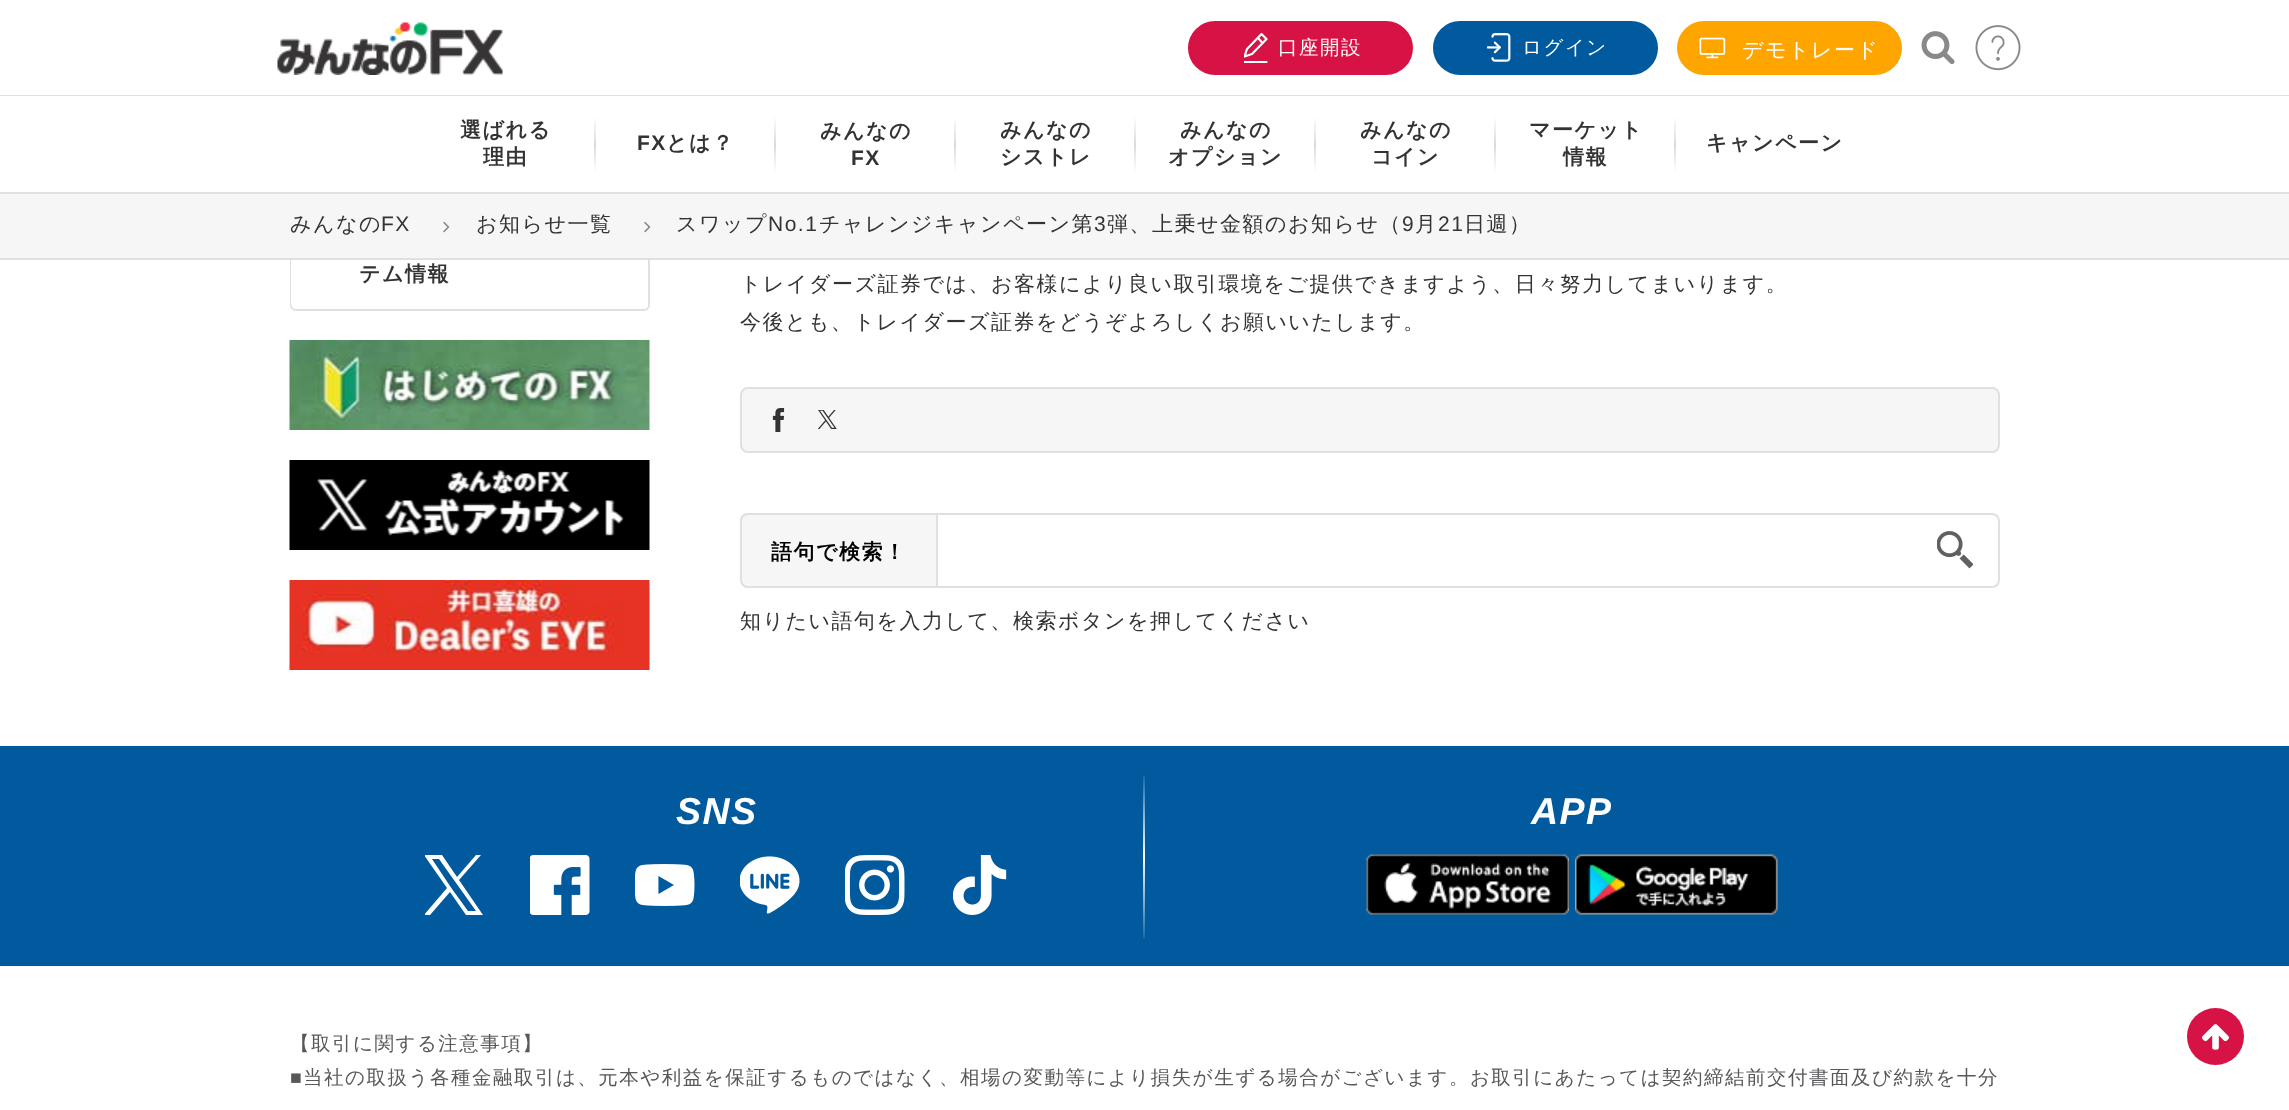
<?xml version="1.0" encoding="UTF-8"?>
<svg xmlns="http://www.w3.org/2000/svg" xmlns:xlink="http://www.w3.org/1999/xlink" width="2289" height="1110">
  <defs>
    <clipPath id="clip1"><rect x="1244" y="33" width="24" height="30" /></clipPath>
    <linearGradient id="g1" gradientUnits="userSpaceOnUse" x1="595" y1="116" x2="595" y2="173"><stop offset="0" stop-color="#ffffff" /><stop offset="0.5" stop-color="#dbdbdb" /><stop offset="1" stop-color="#ffffff" /></linearGradient>
    <linearGradient id="g2" gradientUnits="userSpaceOnUse" x1="775" y1="116" x2="775" y2="173"><stop offset="0" stop-color="#ffffff" /><stop offset="0.5" stop-color="#dbdbdb" /><stop offset="1" stop-color="#ffffff" /></linearGradient>
    <linearGradient id="g3" gradientUnits="userSpaceOnUse" x1="955" y1="116" x2="955" y2="173"><stop offset="0" stop-color="#ffffff" /><stop offset="0.5" stop-color="#dbdbdb" /><stop offset="1" stop-color="#ffffff" /></linearGradient>
    <linearGradient id="g4" gradientUnits="userSpaceOnUse" x1="1135" y1="116" x2="1135" y2="173"><stop offset="0" stop-color="#ffffff" /><stop offset="0.5" stop-color="#dbdbdb" /><stop offset="1" stop-color="#ffffff" /></linearGradient>
    <linearGradient id="g5" gradientUnits="userSpaceOnUse" x1="1315" y1="116" x2="1315" y2="173"><stop offset="0" stop-color="#ffffff" /><stop offset="0.5" stop-color="#dbdbdb" /><stop offset="1" stop-color="#ffffff" /></linearGradient>
    <linearGradient id="g6" gradientUnits="userSpaceOnUse" x1="1495" y1="116" x2="1495" y2="173"><stop offset="0" stop-color="#ffffff" /><stop offset="0.5" stop-color="#dbdbdb" /><stop offset="1" stop-color="#ffffff" /></linearGradient>
    <linearGradient id="g7" gradientUnits="userSpaceOnUse" x1="1675" y1="116" x2="1675" y2="173"><stop offset="0" stop-color="#ffffff" /><stop offset="0.5" stop-color="#dbdbdb" /><stop offset="1" stop-color="#ffffff" /></linearGradient>
    <linearGradient id="g8" gradientUnits="userSpaceOnUse" x1="1144" y1="776" x2="1144" y2="938"><stop offset="0" stop-color="#1a6ba7" /><stop offset="0.5" stop-color="#ffffff" /><stop offset="1" stop-color="#1a6ba7" /></linearGradient>
    <clipPath id="clip2"><rect x="425" y="855" width="58" height="60" /></clipPath>
  </defs>
  <rect width="100%" height="100%" fill="#ffffff" />
  <rect x="291" y="-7" width="358" height="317" rx="5" fill="none" stroke="#e0e0e0" stroke-width="2" />
  <rect x="290" width="360" height="95" fill="#ffffff" />
  <rect y="95" width="2289" height="1" fill="#e0e0e0" />
  <image x="277" y="22" width="226" height="53" xlink:href="image1.png" />
  <rect x="1189.5" y="22.5" width="222" height="51" rx="25.5" fill="#d71244" stroke="#d71244" stroke-width="3" />
  <g clip-path="url(#clip1)">
    <path d="M 1244.5 62 h 22 m -14.5 -8 l -7.5 2.5 l 2.5 -7.5 l 14.5 -15 l 5 5 z" fill="none" stroke="#ffffff" stroke-width="2.2" stroke-linecap="round" stroke-linejoin="round" />
  </g>
  <path d="M 1258 38 l 4.5 5" fill="none" stroke="#ffffff" stroke-width="2.2" stroke-linecap="round" stroke-linejoin="round" />
  <rect x="1434.5" y="22.5" width="222" height="51" rx="25.5" fill="#005a9d" stroke="#005a9d" stroke-width="3" />
  <image x="1487" y="33" width="24" height="29" xlink:href="image2.png" />
  <rect x="1678.5" y="22.5" width="222" height="51" rx="25.5" fill="#ffa500" stroke="#ffa500" stroke-width="3" />
  <image x="1699" y="37" width="27" height="22" xlink:href="image3.png" />
  <image x="1921" y="31" width="34" height="34" xlink:href="image4.png" />
  <image x="1975" y="25" width="46" height="46" xlink:href="image5.png" />
  <rect x="290" y="96" width="360" height="96" fill="#ffffff" />
  <rect y="192" width="2289" height="2" fill="#e0e0e0" />
  <rect x="594" y="116" width="2" height="57" fill="url(#g1)" />
  <rect x="774" y="116" width="2" height="57" fill="url(#g2)" />
  <rect x="954" y="116" width="2" height="57" fill="url(#g3)" />
  <rect x="1134" y="116" width="2" height="57" fill="url(#g4)" />
  <rect x="1314" y="116" width="2" height="57" fill="url(#g5)" />
  <rect x="1494" y="116" width="2" height="57" fill="url(#g6)" />
  <rect x="1674" y="116" width="2" height="57" fill="url(#g7)" />
  <rect x="291" y="195" width="357" height="114" rx="6" fill="#ffffff" />
  <rect y="194" width="2289" height="64" fill="#f6f6f6" />
  <rect y="258" width="2289" height="2" fill="#e0e0e0" />
  <image x="443" y="221" width="7" height="12" xlink:href="image6.png" />
  <image x="644" y="221" width="7" height="12" xlink:href="image6.png" />
  <image x="289" y="340" width="361" height="90" xlink:href="image7.png" />
  <image x="289" y="460" width="361" height="90" xlink:href="image8.png" />
  <image x="289" y="580" width="361" height="90" xlink:href="image9.png" />
  <rect x="741" y="388" width="1258" height="64" rx="7" fill="#f6f6f6" stroke="#e0e0e0" stroke-width="2" />
  <image x="772" y="408" width="13" height="24" xlink:href="image10.png" />
  <image x="818" y="410" width="19" height="19" xlink:href="image11.png" />
  <rect x="741" y="514" width="1258" height="73" rx="7" fill="none" stroke="#e0e0e0" stroke-width="2" />
  <path d="M 748 514 h 189 v 73 h -189 c -4 0 -7 -3 -7 -7 v -59 c 0 -4 3 -7 7 -7 z" fill="#f6f6f6" stroke="#e0e0e0" stroke-width="2" />
  <image x="1937" y="531" width="36" height="38" xlink:href="image12.png" />
  <rect y="746" width="2289" height="220" fill="#005a9d" />
  <rect x="1143" y="776" width="2" height="162" fill="url(#g8)" />
  <g clip-path="url(#clip2)">
    <path d="M 459 880 l 22 -25 h -5 l -19 22 l -15 -22 h -18 l 23 33 l -23 27 h 6 l 20 -23 l 16 23 h 17 z m -7 9 l -20 -30 h 7 l 37 52 h -8 z" fill="#ffffff" />
  </g>
  <image x="530" y="855" width="60" height="60" xlink:href="image13.png" />
  <image x="635" y="864" width="60" height="42" xlink:href="image14.png" />
  <image x="740" y="856" width="60" height="58" xlink:href="image15.png" />
  <image x="845" y="855" width="60" height="60" xlink:href="image16.png" />
  <image x="953" y="855" width="54" height="60" xlink:href="image17.png" />
  <image x="1366" y="854" width="203" height="61" xlink:href="image18.png" />
  <image x="1575" y="854" width="203" height="61" xlink:href="image19.png" />
  <circle cx="2215.5" cy="1036.5" r="28.5" fill="#d71244" />
  <image x="2202" y="1024" width="27" height="26" xlink:href="image20.png" />
  <text x="1278" y="54" style="font-family: WenQuanYi Zen Hei; font-size: 19.5px; font-weight: 500; letter-spacing: 1.5px; fill: #ffffff">口座開設</text>
  <text x="1522" y="54" style="font-family: WenQuanYi Zen Hei; font-size: 19.5px; font-weight: 500; letter-spacing: 1.5px; fill: #ffffff">ログイン</text>
  <text x="1742" y="57" style="font-family: WenQuanYi Zen Hei; font-size: 21px; font-weight: 500; letter-spacing: 1.5px; fill: #ffffff">デモトレード</text>
  <text x="460" y="137" style="font-family: WenQuanYi Zen Hei; font-size: 21px; font-weight: bold; letter-spacing: 1.5px; fill: #333333">選ばれる</text>
  <text x="483" y="164" style="font-family: WenQuanYi Zen Hei; font-size: 21px; font-weight: bold; letter-spacing: 1.5px; fill: #333333">理由</text>
  <text x="637" y="150" style="font-family: Liberation Sans; font-size: 21px; font-weight: bold; letter-spacing: 1.5px; fill: #333333">FX</text>
  <text x="666" y="150" style="font-family: WenQuanYi Zen Hei; font-size: 21px; font-weight: bold; letter-spacing: 1.5px; fill: #333333">とは？</text>
  <text x="820" y="138" style="font-family: WenQuanYi Zen Hei; font-size: 21px; font-weight: bold; letter-spacing: 1.5px; fill: #333333">みんなの</text>
  <text x="851" y="165" style="font-family: Liberation Sans; font-size: 21px; font-weight: bold; letter-spacing: 1.5px; fill: #333333">FX</text>
  <text x="1000" y="137" style="font-family: WenQuanYi Zen Hei; font-size: 21px; font-weight: bold; letter-spacing: 1.5px; fill: #333333">みんなの</text>
  <text x="1000" y="164" style="font-family: WenQuanYi Zen Hei; font-size: 21px; font-weight: bold; letter-spacing: 1.5px; fill: #333333">シストレ</text>
  <text x="1180" y="137" style="font-family: WenQuanYi Zen Hei; font-size: 21px; font-weight: bold; letter-spacing: 1.5px; fill: #333333">みんなの</text>
  <text x="1168" y="164" style="font-family: WenQuanYi Zen Hei; font-size: 21px; font-weight: bold; letter-spacing: 1.5px; fill: #333333">オプション</text>
  <text x="1360" y="137" style="font-family: WenQuanYi Zen Hei; font-size: 21px; font-weight: bold; letter-spacing: 1.5px; fill: #333333">みんなの</text>
  <text x="1371" y="164" style="font-family: WenQuanYi Zen Hei; font-size: 21px; font-weight: bold; letter-spacing: 1.5px; fill: #333333">コイン</text>
  <text x="1529" y="137" style="font-family: WenQuanYi Zen Hei; font-size: 21px; font-weight: bold; letter-spacing: 1.5px; fill: #333333">マーケット</text>
  <text x="1563" y="164" style="font-family: WenQuanYi Zen Hei; font-size: 21px; font-weight: bold; letter-spacing: 1.5px; fill: #333333">情報</text>
  <text x="1706" y="150" style="font-family: WenQuanYi Zen Hei; font-size: 21px; font-weight: bold; letter-spacing: 1.5px; fill: #333333">キャンペーン</text>
  <text x="290" y="231" style="font-family: WenQuanYi Zen Hei; font-size: 21px; font-weight: 500; letter-spacing: 1.5px; fill: #333333">みんなの</text>
  <text x="381" y="231" style="font-family: Liberation Sans; font-size: 21px; letter-spacing: 1.5px; fill: #333333">FX</text>
  <text x="476" y="231" style="font-family: WenQuanYi Zen Hei; font-size: 21px; font-weight: 500; letter-spacing: 1.5px; fill: #333333">お知らせ一覧</text>
  <text x="676" y="231" style="font-family: WenQuanYi Zen Hei; font-size: 21px; font-weight: 500; letter-spacing: 1.5px; fill: #333333">スワップ</text>
  <text x="768" y="231" style="font-family: Liberation Sans; font-size: 21px; letter-spacing: 1.5px; fill: #333333">No.1</text>
  <text x="819" y="231" style="font-family: WenQuanYi Zen Hei; font-size: 21px; font-weight: 500; letter-spacing: 1.5px; fill: #333333">チャレンジキャンペーン第</text>
  <text x="1094" y="231" style="font-family: Liberation Sans; font-size: 21px; letter-spacing: 1.5px; fill: #333333">3</text>
  <text x="1107" y="231" style="font-family: WenQuanYi Zen Hei; font-size: 21px; font-weight: 500; letter-spacing: 1.5px; fill: #333333">弾、上乗せ金額のお知らせ（</text>
  <text x="1402" y="231" style="font-family: Liberation Sans; font-size: 21px; letter-spacing: 1.5px; fill: #333333">9</text>
  <text x="1415" y="231" style="font-family: WenQuanYi Zen Hei; font-size: 21px; font-weight: 500; letter-spacing: 1.5px; fill: #333333">月</text>
  <text x="1438" y="231" style="font-family: Liberation Sans; font-size: 21px; letter-spacing: 1.5px; fill: #333333">21</text>
  <text x="1464" y="231" style="font-family: WenQuanYi Zen Hei; font-size: 21px; font-weight: 500; letter-spacing: 1.5px; fill: #333333">日週）</text>
  <text x="359" y="281" style="font-family: WenQuanYi Zen Hei; font-size: 21px; font-weight: bold; letter-spacing: 1.5px; fill: #333333">テム情報</text>
  <text x="740" y="291" style="font-family: WenQuanYi Zen Hei; font-size: 21px; font-weight: 500; letter-spacing: 1.5px; fill: #333333">トレイダーズ証券では、お客様により良い取引環境をご提供できますよう、日々努力してまいります。</text>
  <text x="740" y="329" style="font-family: WenQuanYi Zen Hei; font-size: 21px; font-weight: 500; letter-spacing: 1.5px; fill: #333333">今後とも、トレイダーズ証券をどうぞよろしくお願いいたします。</text>
  <text x="771" y="559" style="font-family: WenQuanYi Zen Hei; font-size: 21px; font-weight: bold; letter-spacing: 1.5px; fill: #000000">語句で検索！</text>
  <text x="740" y="628" style="font-family: WenQuanYi Zen Hei; font-size: 21px; font-weight: 500; letter-spacing: 1.5px; fill: #333333">知りたい語句を入力して、検索ボタンを押してください</text>
  <text x="676" y="824" style="font-family: Liberation Sans; font-size: 37.5px; font-weight: bold; font-style: italic; letter-spacing: 1.5px; fill: #ffffff">SNS</text>
  <text x="1531" y="824" style="font-family: Liberation Sans; font-size: 37.5px; font-weight: bold; font-style: italic; letter-spacing: 1.5px; fill: #ffffff">APP</text>
  <text x="290" y="1050" style="font-family: WenQuanYi Zen Hei; font-size: 19.5px; font-weight: 500; letter-spacing: 1.5px; fill: #58585b">【取引に関する注意事項】</text>
  <text x="290" y="1084" style="font-family: Liberation Sans; font-size: 19.5px; letter-spacing: 1.5px; fill: #58585b">■</text>
  <text x="303" y="1084" style="font-family: WenQuanYi Zen Hei; font-size: 19.5px; font-weight: 500; letter-spacing: 1.5px; fill: #58585b">当社の取扱う各種金融取引は、元本や利益を保証するものではなく、相場の変動等により損失が生ずる場合がございます。お取引にあたっては契約締結前交付書面及び約款を十分</text>
</svg>
